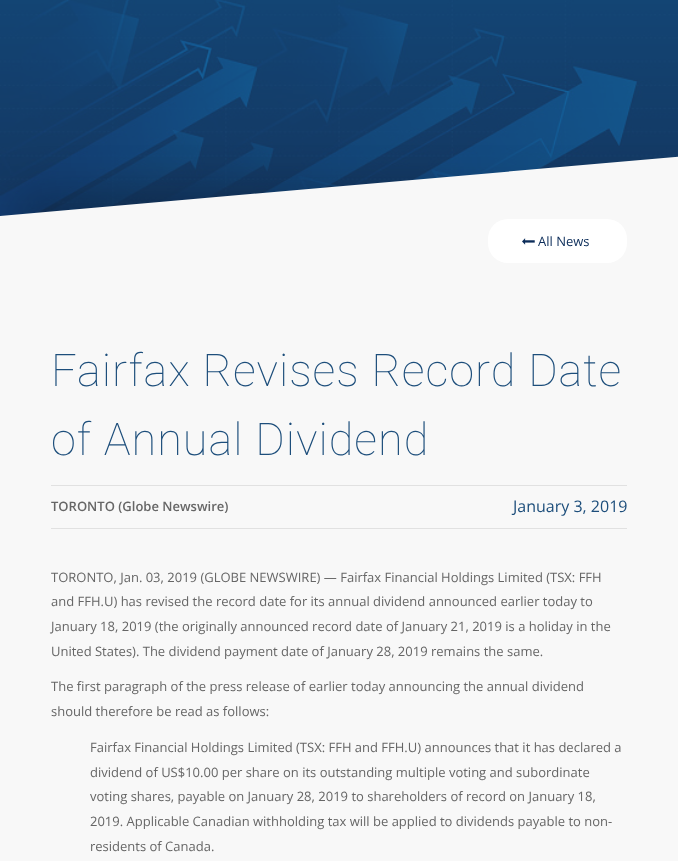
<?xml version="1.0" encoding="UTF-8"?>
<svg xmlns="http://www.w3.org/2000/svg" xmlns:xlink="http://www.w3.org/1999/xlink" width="678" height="861">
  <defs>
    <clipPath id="clip1"><rect x="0" y="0" width="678" height="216" /></clipPath>
    <clipPath id="clip2"><rect width="678" height="216" /></clipPath>
  </defs>
  <rect width="100%" height="100%" fill="#ffffff" />
  <image x="0" y="0" width="678" height="216" xlink:href="image1.png" />
  <rect y="216" width="678" height="645" fill="#f8f8f8" />
  <g clip-path="url(#clip1)">
    <rect x="17" y="191" width="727" height="234" fill="#000000" fill-opacity="0.2" filter="blur(22px)" />
  </g>
  <g clip-path="url(#clip2)">
    <path d="M 0 216 l 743 -65 l 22 249 l -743 65 z" fill="#f8f8f8" />
  </g>
  <rect x="488" y="219" width="139" height="44" rx="20" fill="#ffffff" />
  <image x="522" y="238" width="13" height="7" xlink:href="image2.png" />
  <rect x="51" y="485" width="576" height="1" fill="#e1e1e1" />
  <rect x="51" y="528" width="576" height="1" fill="#e1e1e1" />
  <text x="538" y="246" style="font-family: Open Sans; font-size: 13px; fill: #0b2c59">All News</text>
  <text x="51" y="386" style="font-family: Roboto; font-size: 45px; font-weight: 100; letter-spacing: 1px; fill: #1d4e7b">Fairfax Revises Record Date</text>
  <text x="51" y="455" style="font-family: Roboto; font-size: 45px; font-weight: 100; letter-spacing: 1px; fill: #1d4e7b">of Annual Dividend</text>
  <text x="51" y="511" style="font-family: Open Sans; font-size: 13px; font-weight: 600; fill: #666666">TORONTO (Globe Newswire)</text>
  <text x="513" y="512" style="font-family: Open Sans; font-size: 16px; fill: #1d4e7b">January 3, 2019</text>
  <text x="51" y="582" style="font-family: Open Sans; font-size: 13px; fill: #666666">TORONTO, Jan. 03, 2019 (GLOBE NEWSWIRE) — Fairfax Financial Holdings Limited (TSX: FFH</text>
  <text x="51" y="606" style="font-family: Open Sans; font-size: 13px; fill: #666666">and FFH.U) has revised the record date for its annual dividend announced earlier today to</text>
  <text x="51" y="631" style="font-family: Open Sans; font-size: 13px; fill: #666666">January 18, 2019 (the originally announced record date of January 21, 2019 is a holiday in the</text>
  <text x="51" y="656" style="font-family: Open Sans; font-size: 13px; fill: #666666">United States). The dividend payment date of January 28, 2019 remains the same.</text>
  <text x="51" y="691" style="font-family: Open Sans; font-size: 13px; fill: #666666">The first paragraph of the press release of earlier today announcing the annual dividend</text>
  <text x="51" y="716" style="font-family: Open Sans; font-size: 13px; fill: #666666">should therefore be read as follows:</text>
  <text x="90" y="752" style="font-family: Open Sans; font-size: 13px; fill: #666666">Fairfax Financial Holdings Limited (TSX: FFH and FFH.U) announces that it has declared a</text>
  <text x="90" y="777" style="font-family: Open Sans; font-size: 13px; fill: #666666">dividend of US$10.00 per share on its outstanding multiple voting and subordinate</text>
  <text x="90" y="801" style="font-family: Open Sans; font-size: 13px; fill: #666666">voting shares, payable on January 28, 2019 to shareholders of record on January 18,</text>
  <text x="90" y="826" style="font-family: Open Sans; font-size: 13px; fill: #666666">2019. Applicable Canadian withholding tax will be applied to dividends payable to non-</text>
  <text x="90" y="851" style="font-family: Open Sans; font-size: 13px; fill: #666666">residents of Canada.</text>
</svg>
